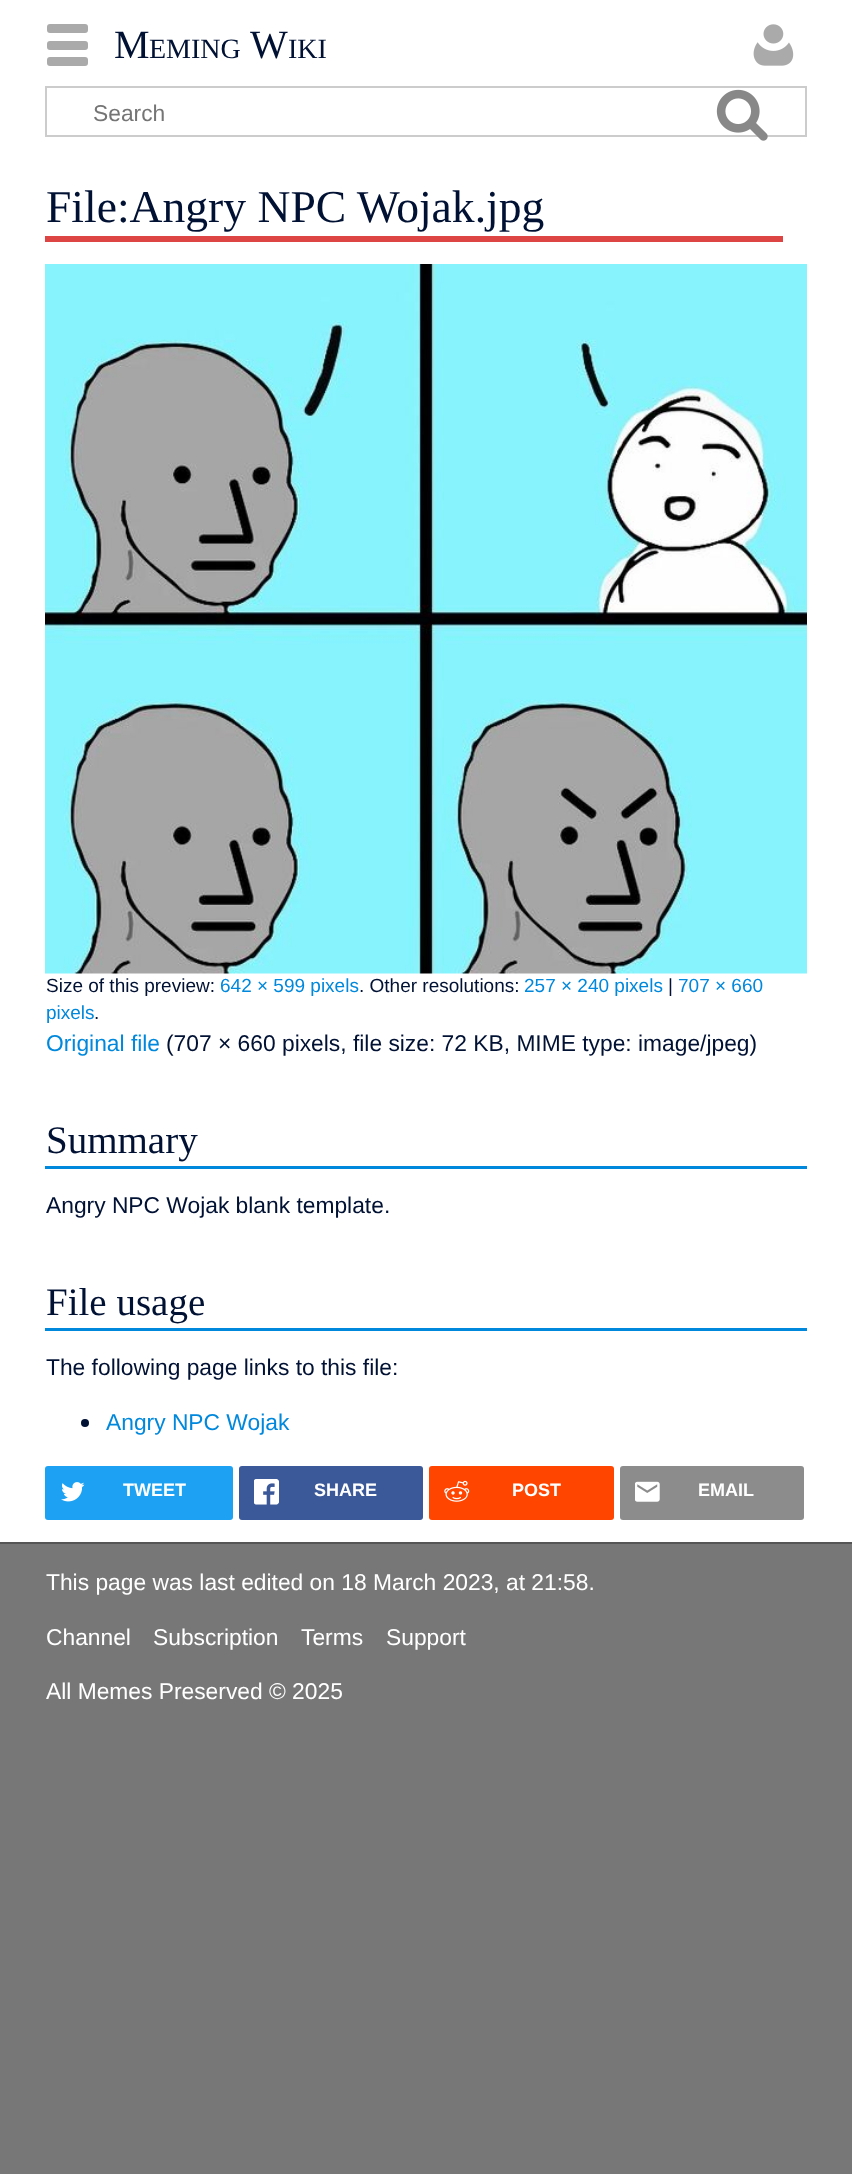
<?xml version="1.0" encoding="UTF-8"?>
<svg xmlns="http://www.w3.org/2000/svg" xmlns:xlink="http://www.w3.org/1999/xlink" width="852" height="2174">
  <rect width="100%" height="100%" fill="#777777" />
  <rect width="852" height="1542" fill="#ffffff" />
  <image x="753" y="24" width="41" height="42" xlink:href="image1.png" />
  <rect x="46" y="87" width="760" height="49" fill="none" stroke="#cccccc" stroke-width="2" />
  <image x="716" y="89" width="52" height="52" xlink:href="image2.png" />
  <rect x="47" y="57" width="41" height="9" rx="3" fill="#aaaaaa" />
  <rect x="47" y="41" width="41" height="9" rx="3" fill="#aaaaaa" />
  <rect x="47" y="24" width="41" height="9" rx="3" fill="#aaaaaa" />
  <rect x="45" y="236" width="738" height="6" fill="#dd4444" />
  <image x="45" y="264" width="762" height="710" xlink:href="image3.png" />
  <rect x="45" y="1166" width="762" height="3" fill="#0088dd" />
  <rect x="45" y="1328" width="762" height="3" fill="#0088dd" />
  <circle cx="85" cy="1423" r="4" fill="#001133" />
  <rect x="45" y="1466" width="188" height="54" rx="3" fill="#1da1f2" />
  <image x="61" y="1482" width="24" height="20" xlink:href="image4.png" />
  <rect x="239" y="1466" width="184" height="54" rx="3" fill="#3b5998" />
  <image x="254" y="1479" width="25" height="26" xlink:href="image5.png" />
  <rect x="429" y="1466" width="185" height="54" rx="3" fill="#ff4500" />
  <image x="444" y="1480" width="26" height="22" xlink:href="image6.png" />
  <rect x="620" y="1466" width="184" height="54" rx="3" fill="#8c8c8c" />
  <image x="635" y="1481" width="25" height="21" xlink:href="image7.png" />
  <rect y="1542" width="852" height="2" fill="#555555" />
  <text x="114" y="58" style="font-family: Liberation Serif; font-size: 40px; fill: #001133">M</text>
  <text x="149" y="58" style="font-family: Liberation Serif; font-size: 28px; fill: #001133">EMING</text>
  <text x="250" y="58" style="font-family: Liberation Serif; font-size: 40px; fill: #001133">W</text>
  <text x="288" y="58" style="font-family: Liberation Serif; font-size: 28px; fill: #001133">IKI</text>
  <text x="93" y="121" style="font-family: Liberation Sans; font-size: 22.8px; fill: #757575">Search</text>
  <text x="46" y="222" style="font-family: Liberation Serif; font-size: 45.6px; fill: #001133">File:Angry NPC Wojak.jpg</text>
  <text x="46" y="992" style="font-family: Liberation Sans; font-size: 19px; fill: #001133">Size of this preview:</text>
  <text x="220" y="992" style="font-family: Liberation Sans; font-size: 19px; fill: #0088dd">642 × 599 pixels</text>
  <text x="359" y="992" style="font-family: Liberation Sans; font-size: 19px; fill: #001133">. Other resolutions:</text>
  <text x="524" y="992" style="font-family: Liberation Sans; font-size: 19px; fill: #0088dd">257 × 240 pixels</text>
  <text x="668" y="992" style="font-family: Liberation Sans; font-size: 19px; fill: #001133">|</text>
  <text x="678" y="992" style="font-family: Liberation Sans; font-size: 19px; fill: #0088dd">707 × 660</text>
  <text x="46" y="1019" style="font-family: Liberation Sans; font-size: 19px; fill: #0088dd">pixels</text>
  <text x="94" y="1019" style="font-family: Liberation Sans; font-size: 19px; fill: #001133">.</text>
  <text x="46" y="1051" style="font-family: Liberation Sans; font-size: 22.8px; fill: #0088dd">Original file</text>
  <text x="166" y="1051" style="font-family: Liberation Sans; font-size: 22.8px; fill: #001133">(707 × 660 pixels, file size: 72 KB, MIME type:</text>
  <text x="638" y="1051" style="font-family: Liberation Sans; font-size: 22.8px; fill: #001133">image/jpeg)</text>
  <text x="46" y="1153" style="font-family: Liberation Serif; font-size: 39px; fill: #001133">Summary</text>
  <text x="46" y="1213" style="font-family: Liberation Sans; font-size: 22.8px; fill: #001133">Angry NPC Wojak blank template.</text>
  <text x="46" y="1315" style="font-family: Liberation Serif; font-size: 39px; fill: #001133">File usage</text>
  <text x="46" y="1375" style="font-family: Liberation Sans; font-size: 22.8px; fill: #001133">The following page links to this file:</text>
  <text x="106" y="1430" style="font-family: Liberation Sans; font-size: 22.8px; fill: #0088dd">Angry NPC Wojak</text>
  <text x="123" y="1496" style="font-family: Liberation Sans; font-size: 18px; font-weight: bold; fill: #ffffff">TWEET</text>
  <text x="314" y="1496" style="font-family: Liberation Sans; font-size: 18px; font-weight: bold; fill: #ffffff">SHARE</text>
  <text x="512" y="1496" style="font-family: Liberation Sans; font-size: 18px; font-weight: bold; fill: #ffffff">POST</text>
  <text x="698" y="1496" style="font-family: Liberation Sans; font-size: 18px; font-weight: bold; fill: #ffffff">EMAIL</text>
  <text x="46" y="1590" style="font-family: Liberation Sans; font-size: 22.8px; fill: #ffffff">This page was last edited on 18 March 2023, at 21:58.</text>
  <text x="46" y="1645" style="font-family: Liberation Sans; font-size: 22.8px; fill: #ffffff">Channel</text>
  <text x="153" y="1645" style="font-family: Liberation Sans; font-size: 22.8px; fill: #ffffff">Subscription</text>
  <text x="301" y="1645" style="font-family: Liberation Sans; font-size: 22.8px; fill: #ffffff">Terms</text>
  <text x="386" y="1645" style="font-family: Liberation Sans; font-size: 22.8px; fill: #ffffff">Support</text>
  <text x="46" y="1699" style="font-family: Liberation Sans; font-size: 22.8px; fill: #ffffff">All Memes Preserved © 2025</text>
</svg>
